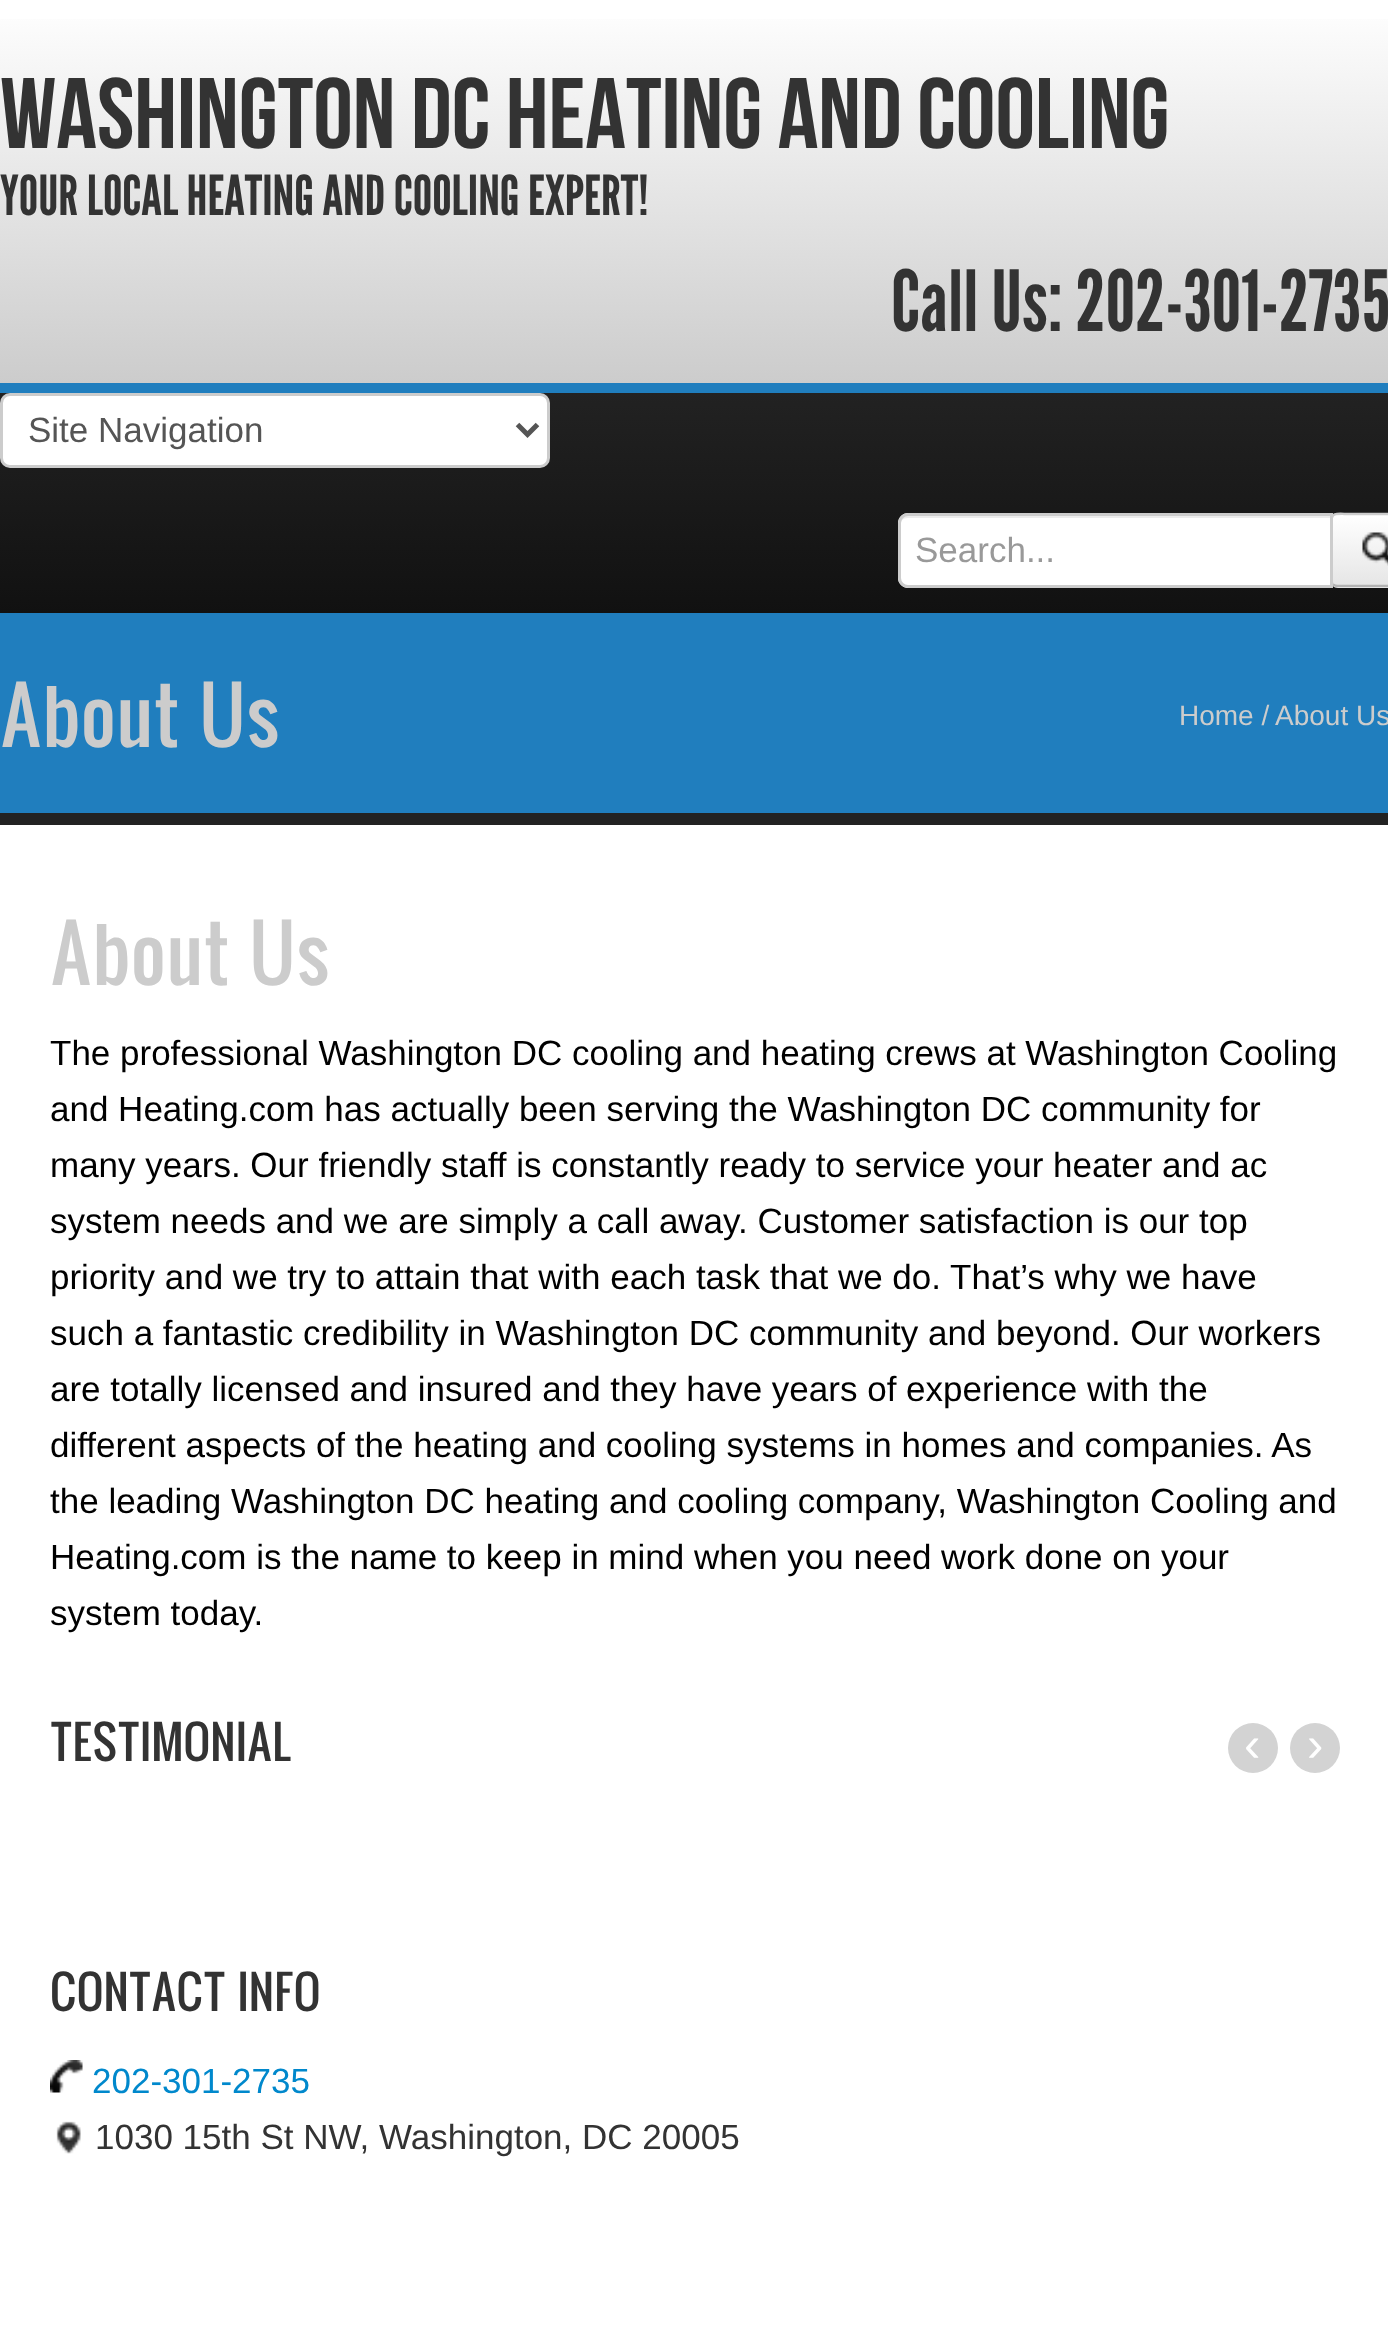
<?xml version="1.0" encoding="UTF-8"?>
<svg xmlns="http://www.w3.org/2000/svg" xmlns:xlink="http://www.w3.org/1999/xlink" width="1388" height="2341">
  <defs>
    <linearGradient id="g1" gradientUnits="userSpaceOnUse" x1="695" y1="0" x2="695" y2="383"><stop offset="0" stop-color="#ffffff" /><stop offset="1" stop-color="#cccccc" /></linearGradient>
    <linearGradient id="g2" gradientUnits="userSpaceOnUse" x1="695" y1="392" x2="695" y2="613"><stop offset="0" stop-color="#222222" /><stop offset="1" stop-color="#111111" /></linearGradient>
    <linearGradient id="g3" gradientUnits="userSpaceOnUse" x1="1380" y1="515" x2="1380" y2="585"><stop offset="0" stop-color="#ffffff" /><stop offset="1" stop-color="#e6e6e6" /></linearGradient>
  </defs>
  <rect width="100%" height="100%" fill="#ffffff" />
  <rect y="19" width="1388" height="364" fill="url(#g1)" />
  <rect y="393" width="1388" height="220" fill="url(#g2)" />
  <rect y="383" width="1388" height="10" fill="#207ebe" />
  <rect x="1.5" y="394.5" width="547" height="72" rx="8.5" fill="#ffffff" stroke="#cccccc" stroke-width="3" />
  <path d="M 517.5 424.5 l 10 10 l 10 -10" fill="none" stroke="#555555" stroke-width="5" />
  <rect x="1330" y="513" width="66" height="75" rx="8" fill="#f5f5f5" />
  <rect x="1333" y="515" width="55" height="70" fill="url(#g3)" />
  <path d="M 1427 584.5 c -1.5 1 -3 1.5 -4.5 1.5 h -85 c -1.5 0 -3 -0.5 -4.5 -1.5" fill="none" stroke="#b3b3b3" stroke-width="2.5" />
  <path d="M 1333 584.5 c -3.5 -3.5 -2 -11.5 -2 -14.5 v -40 c 0 -19 0.5 -16 20.5 -16 h 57 c 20 0 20.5 -3 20.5 16 v 40 c 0 3 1.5 11 -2 14.5" fill="none" stroke="#cccccc" stroke-width="2.5" />
  <path d="M 908 513 h 425 v 75 h -425 c -5.5 0 -10 -4.5 -10 -10 v -55 c 0 -5.5 4.5 -10 10 -10 z" fill="#ffffff" />
  <path d="M 908 518 h 422 v -3 h -422 c -4 0 -8 4 -8 8 v 2 c 0 -4 3 -7 8 -7 z" fill="#ececec" />
  <path d="M 908 514.5 h 423.5 v 72 h -423.5 c -4.5 0 -8.5 -4 -8.5 -8.5 v -55 c 0 -4.5 4 -8.5 8.5 -8.5 z" fill="none" stroke="#cccccc" stroke-width="3" />
  <image x="1362" y="532" width="26" height="34" xlink:href="image1.png" />
  <rect y="613" width="1388" height="200" fill="#207ebe" />
  <rect y="813" width="1388" height="12" fill="#222222" />
  <circle cx="1253" cy="1748" r="25" fill="#d3d3d3" />
  <circle cx="1315" cy="1748" r="25" fill="#d3d3d3" />
  <image x="50" y="2060" width="33" height="33" xlink:href="image2.png" />
  <image x="56" y="2121" width="25" height="33" xlink:href="image3.png" />
  <text x="0" y="148" style="font-family: Bebas Neue; font-size: 100px; fill: #333333">WASHINGTON DC HEATING AND COOLING</text>
  <text x="0" y="215" style="font-family: League Gothic; font-size: 55px; fill: #333333">YOUR LOCAL HEATING AND COOLING EXPERT!</text>
  <text x="891" y="331" style="font-family: League Gothic; font-size: 84px; fill: #333333">Call Us: 202-301-2735</text>
  <text x="28" y="442" style="font-family: Liberation Sans; font-size: 35px; fill: #555555">Site Navigation</text>
  <text x="915" y="562" style="font-family: Liberation Sans; font-size: 35px; fill: #999999">Search...</text>
  <text x="0" y="747" style="font-family: Oswald; font-size: 75px; fill: #cccccc">About Us</text>
  <text x="1179" y="725" style="font-family: Liberation Sans; font-size: 28px; fill: #cccccc">Home /</text>
  <text x="1275" y="725" style="font-family: Liberation Sans; font-size: 28px; fill: #cccccc">About Us</text>
  <text x="50" y="985" style="font-family: Oswald; font-size: 75px; fill: #cccccc">About Us</text>
  <text x="50" y="1065" style="font-family: Liberation Sans; font-size: 35px; fill: #000000">The professional Washington DC cooling and heating crews at Washington Cooling</text>
  <text x="50" y="1121" style="font-family: Liberation Sans; font-size: 35px; fill: #000000">and Heating.com has actually been serving the Washington DC community for</text>
  <text x="50" y="1177" style="font-family: Liberation Sans; font-size: 35px; fill: #000000">many years. Our friendly staff is constantly ready to service your heater and ac</text>
  <text x="50" y="1233" style="font-family: Liberation Sans; font-size: 35px; fill: #000000">system needs and we are simply a call away. Customer satisfaction is our top</text>
  <text x="50" y="1289" style="font-family: Liberation Sans; font-size: 35px; fill: #000000">priority and we try to attain that with each task that we do. That’s why we have</text>
  <text x="50" y="1345" style="font-family: Liberation Sans; font-size: 35px; fill: #000000">such a fantastic credibility in Washington DC community and beyond. Our workers</text>
  <text x="50" y="1401" style="font-family: Liberation Sans; font-size: 35px; fill: #000000">are totally licensed and insured and they have years of experience with the</text>
  <text x="50" y="1457" style="font-family: Liberation Sans; font-size: 35px; fill: #000000">different aspects of the heating and cooling systems in homes and companies. As</text>
  <text x="50" y="1513" style="font-family: Liberation Sans; font-size: 35px; fill: #000000">the leading Washington DC heating and cooling company, Washington Cooling and</text>
  <text x="50" y="1569" style="font-family: Liberation Sans; font-size: 35px; fill: #000000">Heating.com is the name to keep in mind when you need work done on your</text>
  <text x="50" y="1625" style="font-family: Liberation Sans; font-size: 35px; fill: #000000">system today.</text>
  <text x="50" y="1761" style="font-family: Oswald; font-size: 45px; fill: #333333">TESTIMONIAL</text>
  <text x="1244" y="1761" style="font-family: Liberation Sans; font-size: 49px; fill: #ffffff">‹</text>
  <text x="1307" y="1761" style="font-family: Liberation Sans; font-size: 49px; fill: #ffffff">›</text>
  <text x="50" y="2011" style="font-family: Oswald; font-size: 45px; fill: #333333">CONTACT INFO</text>
  <text x="92" y="2093" style="font-family: Liberation Sans; font-size: 35px; fill: #0088cc">202-301-2735</text>
  <text x="95" y="2149" style="font-family: Liberation Sans; font-size: 35px; fill: #333333">1030 15th St NW, Washington, DC 20005</text>
</svg>
